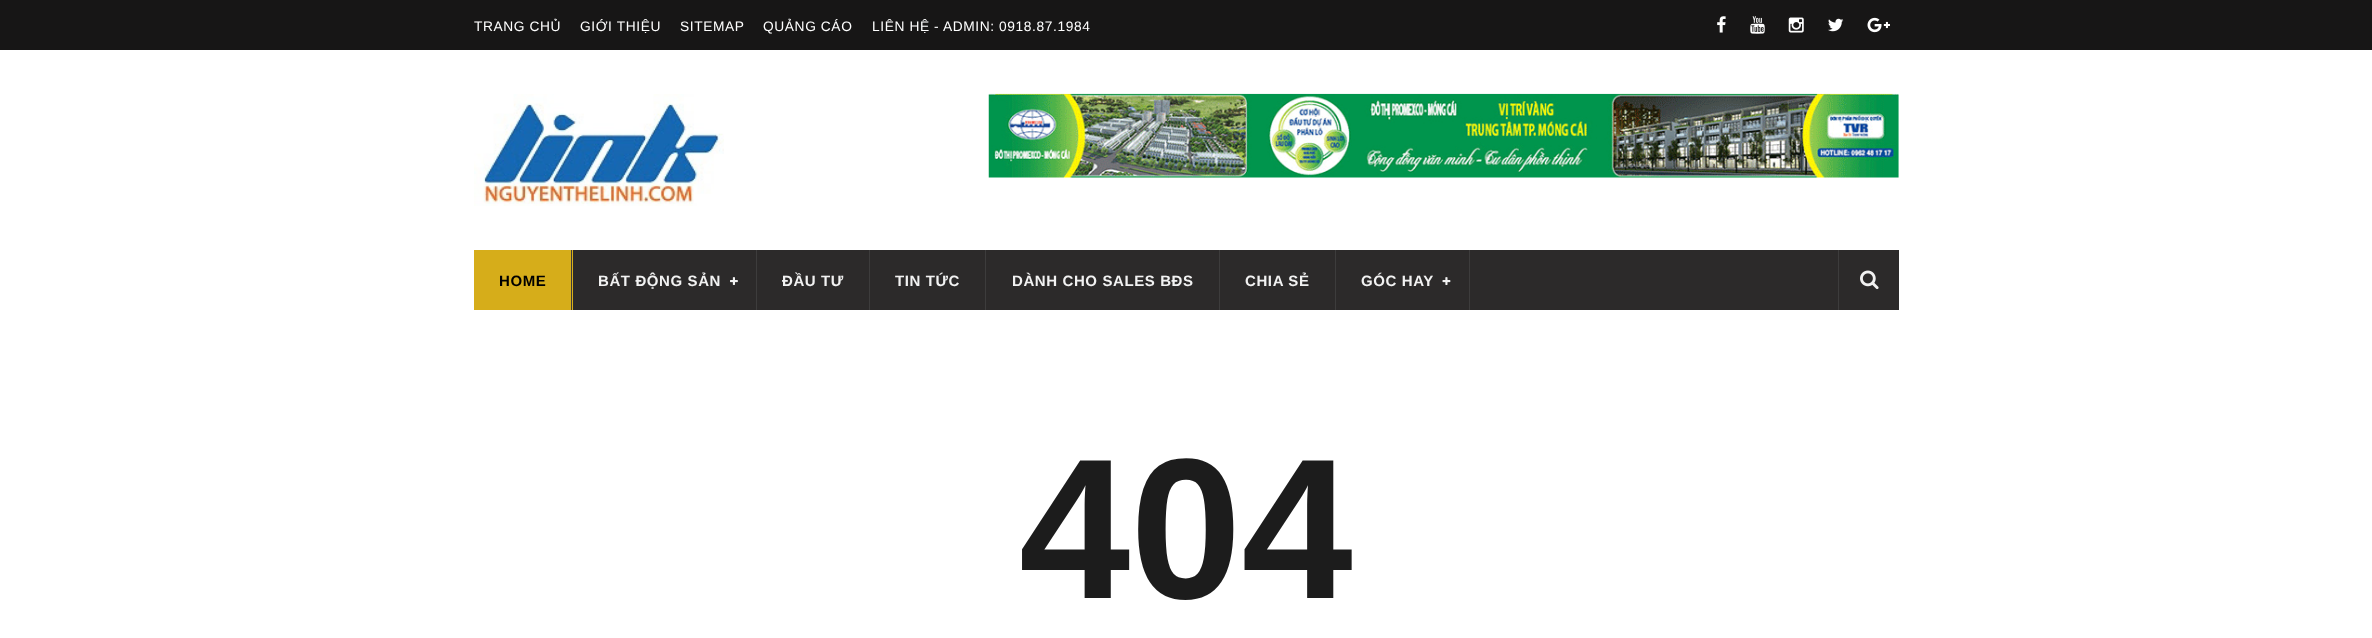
<?xml version="1.0" encoding="UTF-8"?>
<svg xmlns="http://www.w3.org/2000/svg" xmlns:xlink="http://www.w3.org/1999/xlink" width="2372" height="638">
  <rect width="100%" height="100%" fill="#ffffff" />
  <rect width="2372" height="50" fill="#171616" />
  <image x="1717" y="16" width="9" height="17" xlink:href="image1.png" />
  <image x="1750" y="16" width="15" height="18" xlink:href="image2.png" />
  <image x="1788" y="17" width="16" height="16" xlink:href="image3.png" />
  <image x="1828" y="18" width="16" height="14" xlink:href="image4.png" />
  <image x="1867" y="17" width="23" height="16" xlink:href="image5.png" />
  <image x="474" y="94" width="250" height="112" xlink:href="image6.png" />
  <image x="988" y="93" width="911" height="85" xlink:href="image7.png" />
  <rect x="573" y="250" width="1326" height="60" fill="#2c2a2a" />
  <rect x="474" y="250" width="99" height="60" fill="#d6ad1a" />
  <rect x="571" y="250" width="1" height="60" fill="#3d3c3c" />
  <rect x="756" y="250" width="1" height="60" fill="#3d3c3c" />
  <image x="730" y="277" width="8" height="8" xlink:href="image8.png" />
  <rect x="869" y="250" width="1" height="60" fill="#3d3c3c" />
  <rect x="985" y="250" width="1" height="60" fill="#3d3c3c" />
  <rect x="1219" y="250" width="1" height="60" fill="#3d3c3c" />
  <rect x="1335" y="250" width="1" height="60" fill="#3d3c3c" />
  <rect x="1469" y="250" width="1" height="60" fill="#3d3c3c" />
  <image x="1442" y="277" width="9" height="8" xlink:href="image9.png" />
  <rect x="1838" y="250" width="1" height="60" fill="#3d3c3c" />
  <image x="1860" y="270" width="19" height="20" xlink:href="image10.png" />
  <text x="474" y="31" style="font-family: Liberation Sans; font-size: 13.75px; letter-spacing: 0.6px; fill: #ffffff">TRANG CHỦ</text>
  <text x="580" y="31" style="font-family: Liberation Sans; font-size: 13.75px; letter-spacing: 0.6px; fill: #ffffff">GIỚI THIỆU</text>
  <text x="680" y="31" style="font-family: Liberation Sans; font-size: 13.75px; letter-spacing: 0.6px; fill: #ffffff">SITEMAP</text>
  <text x="763" y="31" style="font-family: Liberation Sans; font-size: 13.75px; letter-spacing: 0.6px; fill: #ffffff">QUẢNG CÁO</text>
  <text x="872" y="31" style="font-family: Liberation Sans; font-size: 13.75px; letter-spacing: 0.6px; fill: #ffffff">LIÊN HỆ - ADMIN: 0918.87.1984</text>
  <text x="499" y="286" style="font-family: Liberation Sans; font-size: 15px; font-weight: bold; letter-spacing: 0.6px; fill: #000000">HOME</text>
  <text x="598" y="286" style="font-family: Liberation Sans; font-size: 15px; font-weight: bold; letter-spacing: 0.6px; fill: #f2f2f2">BẤT ĐỘNG SẢN</text>
  <text x="782" y="286" style="font-family: Liberation Sans; font-size: 15px; font-weight: bold; letter-spacing: 0.6px; fill: #f2f2f2">ĐẦU TƯ</text>
  <text x="895" y="286" style="font-family: Liberation Sans; font-size: 15px; font-weight: bold; letter-spacing: 0.6px; fill: #f2f2f2">TIN TỨC</text>
  <text x="1012" y="286" style="font-family: Liberation Sans; font-size: 15px; font-weight: bold; letter-spacing: 0.6px; fill: #f2f2f2">DÀNH CHO SALES BĐS</text>
  <text x="1245" y="286" style="font-family: Liberation Sans; font-size: 15px; font-weight: bold; letter-spacing: 0.6px; fill: #f2f2f2">CHIA SẺ</text>
  <text x="1361" y="286" style="font-family: Liberation Sans; font-size: 15px; font-weight: bold; letter-spacing: 0.6px; fill: #f2f2f2">GÓC HAY</text>
  <text x="1019" y="598" style="font-family: Liberation Sans; font-size: 200px; font-weight: bold; fill: #1c1c1c">404</text>
</svg>
